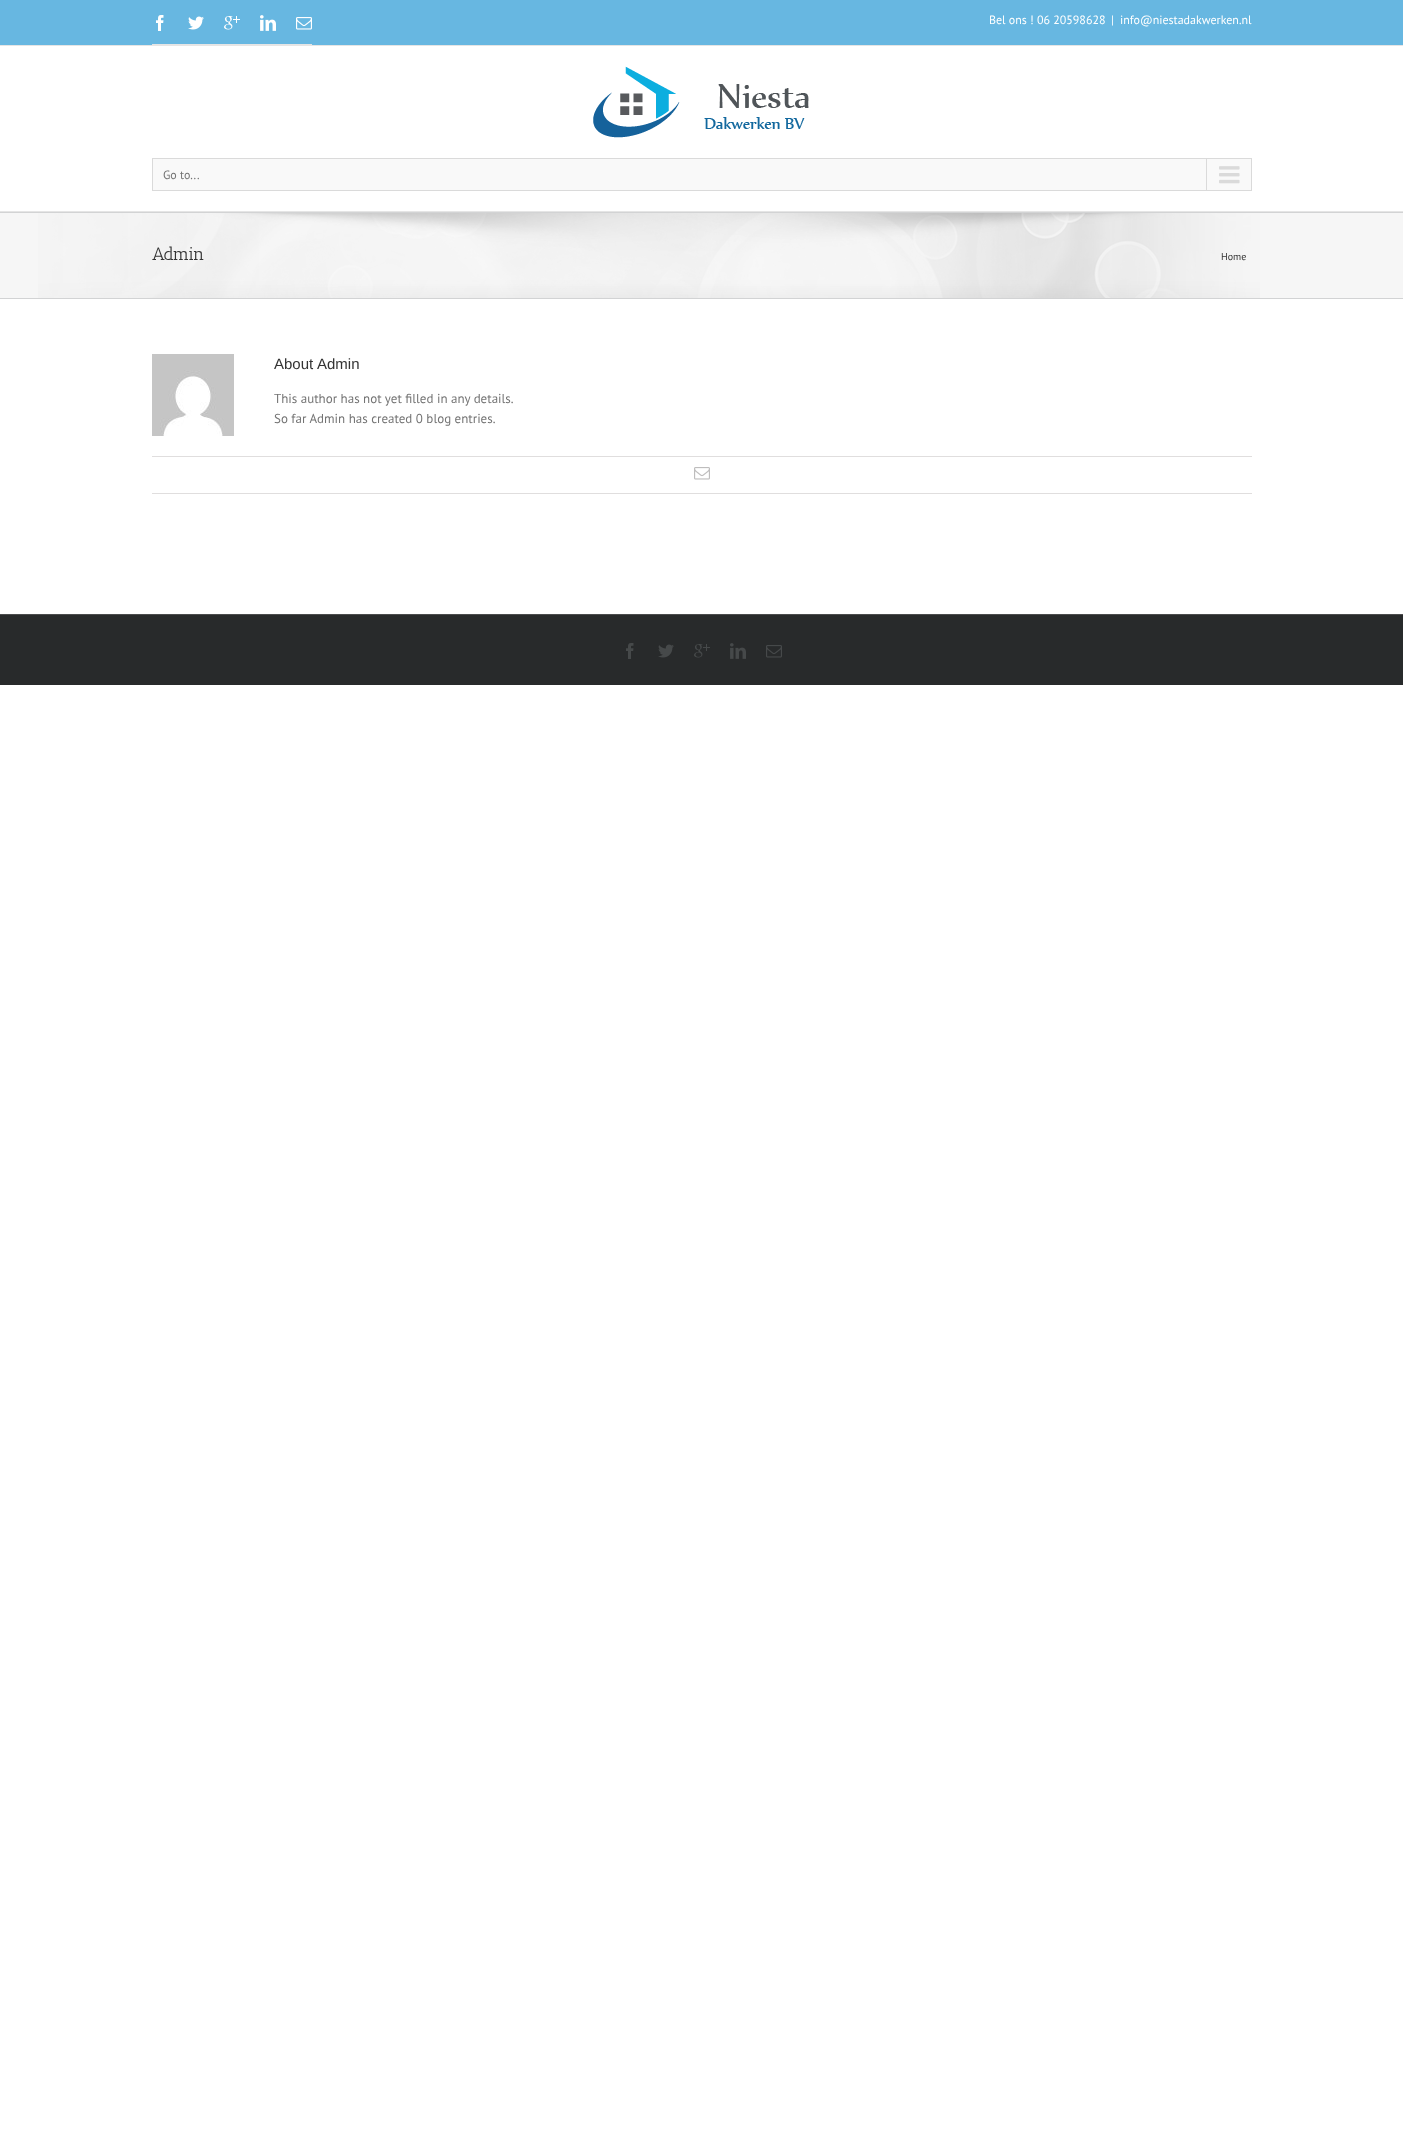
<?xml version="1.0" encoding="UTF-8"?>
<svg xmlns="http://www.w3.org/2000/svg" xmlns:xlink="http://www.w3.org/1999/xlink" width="1403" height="2136">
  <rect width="100%" height="100%" fill="#ffffff" />
  <rect width="1403" height="45" fill="#67b7e1" />
  <rect y="45" width="1403" height="1" fill="#e5e5e5" />
  <rect x="152" y="44" width="160" height="1" fill="#e5e5e5" />
  <image x="156" y="15" width="8" height="16" xlink:href="image1.png" />
  <image x="188" y="16" width="16" height="14" xlink:href="image2.png" />
  <image x="224" y="16" width="16" height="14" xlink:href="image3.png" />
  <image x="260" y="15" width="16" height="16" xlink:href="image4.png" />
  <image x="296" y="17" width="16" height="13" xlink:href="image5.png" />
  <rect y="211" width="1403" height="1" fill="#e5e5e5" />
  <image x="593" y="66" width="216" height="72" xlink:href="image6.png" />
  <rect x="152.5" y="158.5" width="1099" height="32" fill="#f9f9f9" stroke="#dadada" />
  <rect x="1206" y="159" width="1" height="31" fill="#dadada" />
  <image x="1219" y="166" width="21" height="18" xlink:href="image7.png" />
  <rect y="213" width="1403" height="85" fill="#f6f6f6" />
  <image x="38" y="213" width="1222" height="85" xlink:href="image8.png" />
  <rect y="212" width="1403" height="1" fill="#d2d3d4" />
  <rect y="298" width="1403" height="1" fill="#d2d3d4" />
  <image x="152" y="354" width="82" height="82" xlink:href="image9.png" />
  <rect x="152" y="456" width="1100" height="1" fill="#e0dede" />
  <rect x="152" y="493" width="1100" height="1" fill="#e0dede" />
  <image x="694" y="467" width="16" height="13" xlink:href="image10.png" />
  <rect y="615" width="1403" height="70" fill="#282a2b" />
  <rect y="614" width="1403" height="1" fill="#4b4c4d" />
  <image x="626" y="643" width="8" height="16" xlink:href="image11.png" />
  <image x="658" y="644" width="16" height="14" xlink:href="image12.png" />
  <image x="694" y="644" width="16" height="14" xlink:href="image13.png" />
  <image x="730" y="643" width="16" height="16" xlink:href="image14.png" />
  <image x="766" y="645" width="16" height="13" xlink:href="image15.png" />
  <text x="989" y="24" style="font-family: PT Sans; font-size: 12px; fill: #ffffff">Bel ons ! 06 20598628</text>
  <text x="1111" y="24" style="font-family: PT Sans; font-size: 12px; fill: #ffffff">|</text>
  <text x="1120" y="24" style="font-family: PT Sans; font-size: 12px; fill: #ffffff">info@niestadakwerken.nl</text>
  <text x="163" y="179" style="font-family: PT Sans; font-size: 12px; fill: #747474">Go to...</text>
  <text x="152" y="260" style="font-family: Antic Slab; font-size: 18px; fill: #333333">Admin</text>
  <text x="1221" y="260" style="font-family: PT Sans; font-size: 10px; fill: #333333">Home</text>
  <text x="274" y="369" style="font-family: Liberation Sans; font-size: 15px; fill: #333333">About</text>
  <text x="317" y="369" style="font-family: Liberation Sans; font-size: 15px; fill: #333333">Admin</text>
  <text x="274" y="403" style="font-family: PT Sans; font-size: 13px; fill: #747474">This author has not yet filled in any details.</text>
  <text x="274" y="423" style="font-family: PT Sans; font-size: 13px; fill: #747474">So far Admin has created 0 blog entries.</text>
</svg>
